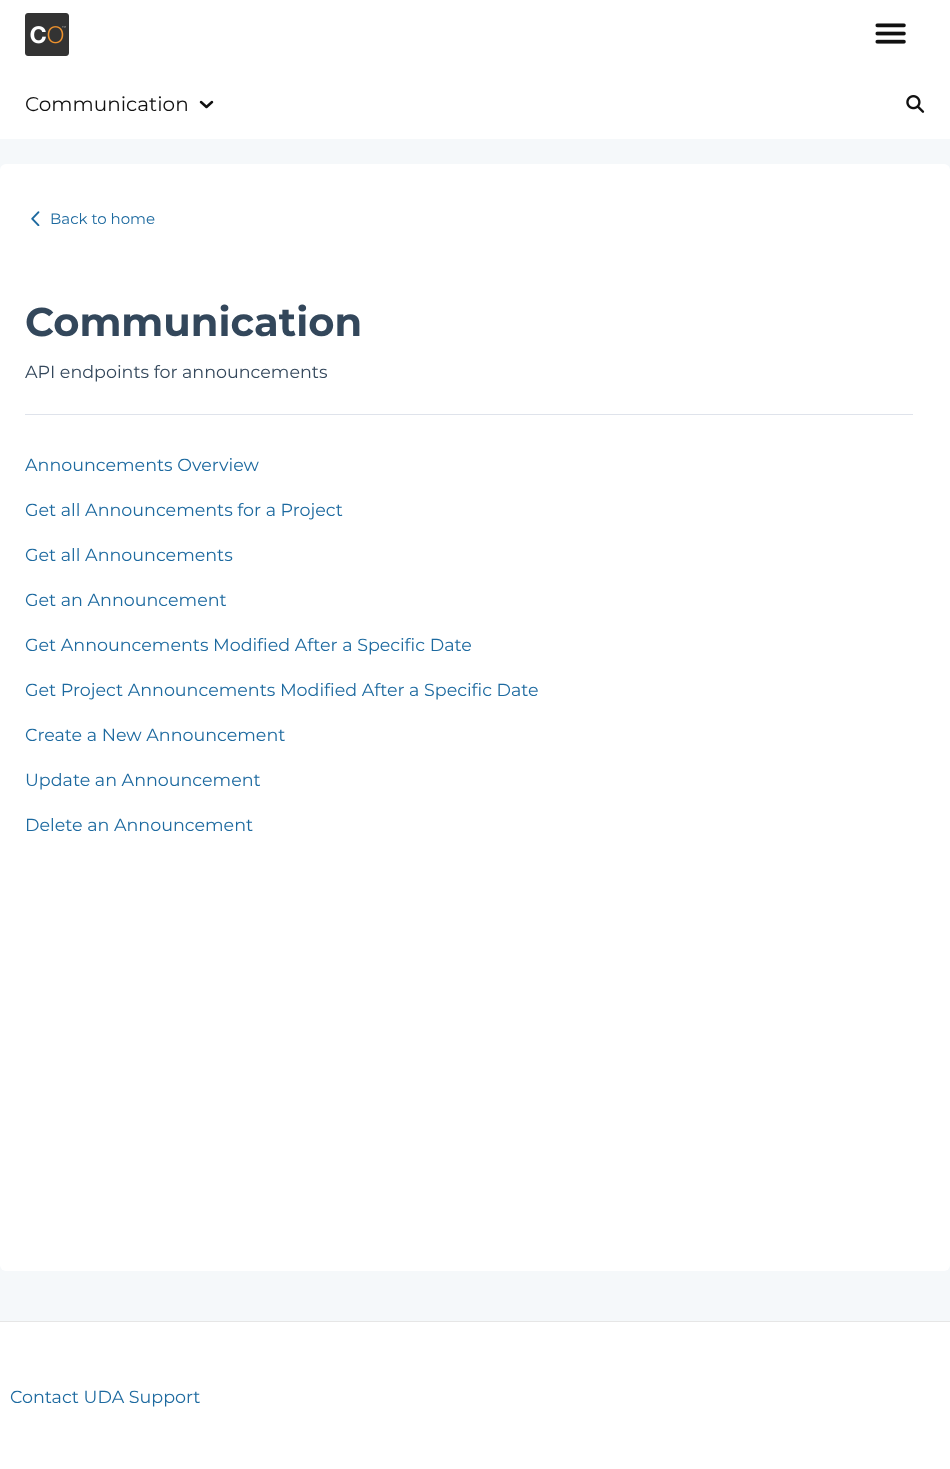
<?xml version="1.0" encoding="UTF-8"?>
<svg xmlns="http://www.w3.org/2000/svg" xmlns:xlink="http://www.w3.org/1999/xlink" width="950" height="1469">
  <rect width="100%" height="100%" fill="#f5f8fa" />
  <rect width="950" height="139" fill="#ffffff" />
  <image x="25" y="13" width="44" height="43" xlink:href="image1.png" />
  <image x="875" y="23" width="31" height="21" xlink:href="image2.png" />
  <path d="M 212 102 l -5.5 5 l -5.5 -5" fill="none" stroke="#111111" stroke-width="2.5" stroke-linecap="round" stroke-linejoin="round" />
  <image x="906" y="95" width="19" height="18" xlink:href="image3.png" />
  <rect y="164" width="950" height="1107" rx="6" fill="#ffffff" />
  <image x="31" y="211" width="9" height="15" xlink:href="image4.png" />
  <rect x="25" y="414" width="888" height="1" fill="#dfe3eb" />
  <rect y="1322" width="950" height="147" fill="#ffffff" />
  <rect y="1321" width="950" height="1" fill="#e6e6e6" />
  <text x="25" y="111" style="font-family: Montserrat; font-size: 20px; fill: #111111">Communication</text>
  <text x="50" y="224" style="font-family: Montserrat; font-size: 15px; fill: #1c699f">Back to home</text>
  <text x="25" y="336" style="font-family: Montserrat; font-size: 40px; font-weight: bold; fill: #33475b">Communication</text>
  <text x="25" y="378" style="font-family: Montserrat; font-size: 17.5px; fill: #33475b">API endpoints for announcements</text>
  <text x="25" y="471" style="font-family: Montserrat; font-size: 17.5px; fill: #1c699f">Announcements Overview</text>
  <text x="25" y="516" style="font-family: Montserrat; font-size: 17.5px; fill: #1c699f">Get all Announcements for a Project</text>
  <text x="25" y="561" style="font-family: Montserrat; font-size: 17.5px; fill: #1c699f">Get all Announcements</text>
  <text x="25" y="606" style="font-family: Montserrat; font-size: 17.5px; fill: #1c699f">Get an Announcement</text>
  <text x="25" y="651" style="font-family: Montserrat; font-size: 17.5px; fill: #1c699f">Get Announcements Modified After a Specific Date</text>
  <text x="25" y="696" style="font-family: Montserrat; font-size: 17.5px; fill: #1c699f">Get Project Announcements Modified After a Specific Date</text>
  <text x="25" y="741" style="font-family: Montserrat; font-size: 17.5px; fill: #1c699f">Create a New Announcement</text>
  <text x="25" y="786" style="font-family: Montserrat; font-size: 17.5px; fill: #1c699f">Update an Announcement</text>
  <text x="25" y="831" style="font-family: Montserrat; font-size: 17.5px; fill: #1c699f">Delete an Announcement</text>
  <text x="10" y="1403" style="font-family: Montserrat; font-size: 17.5px; fill: #1c699f">Contact UDA Support</text>
</svg>
